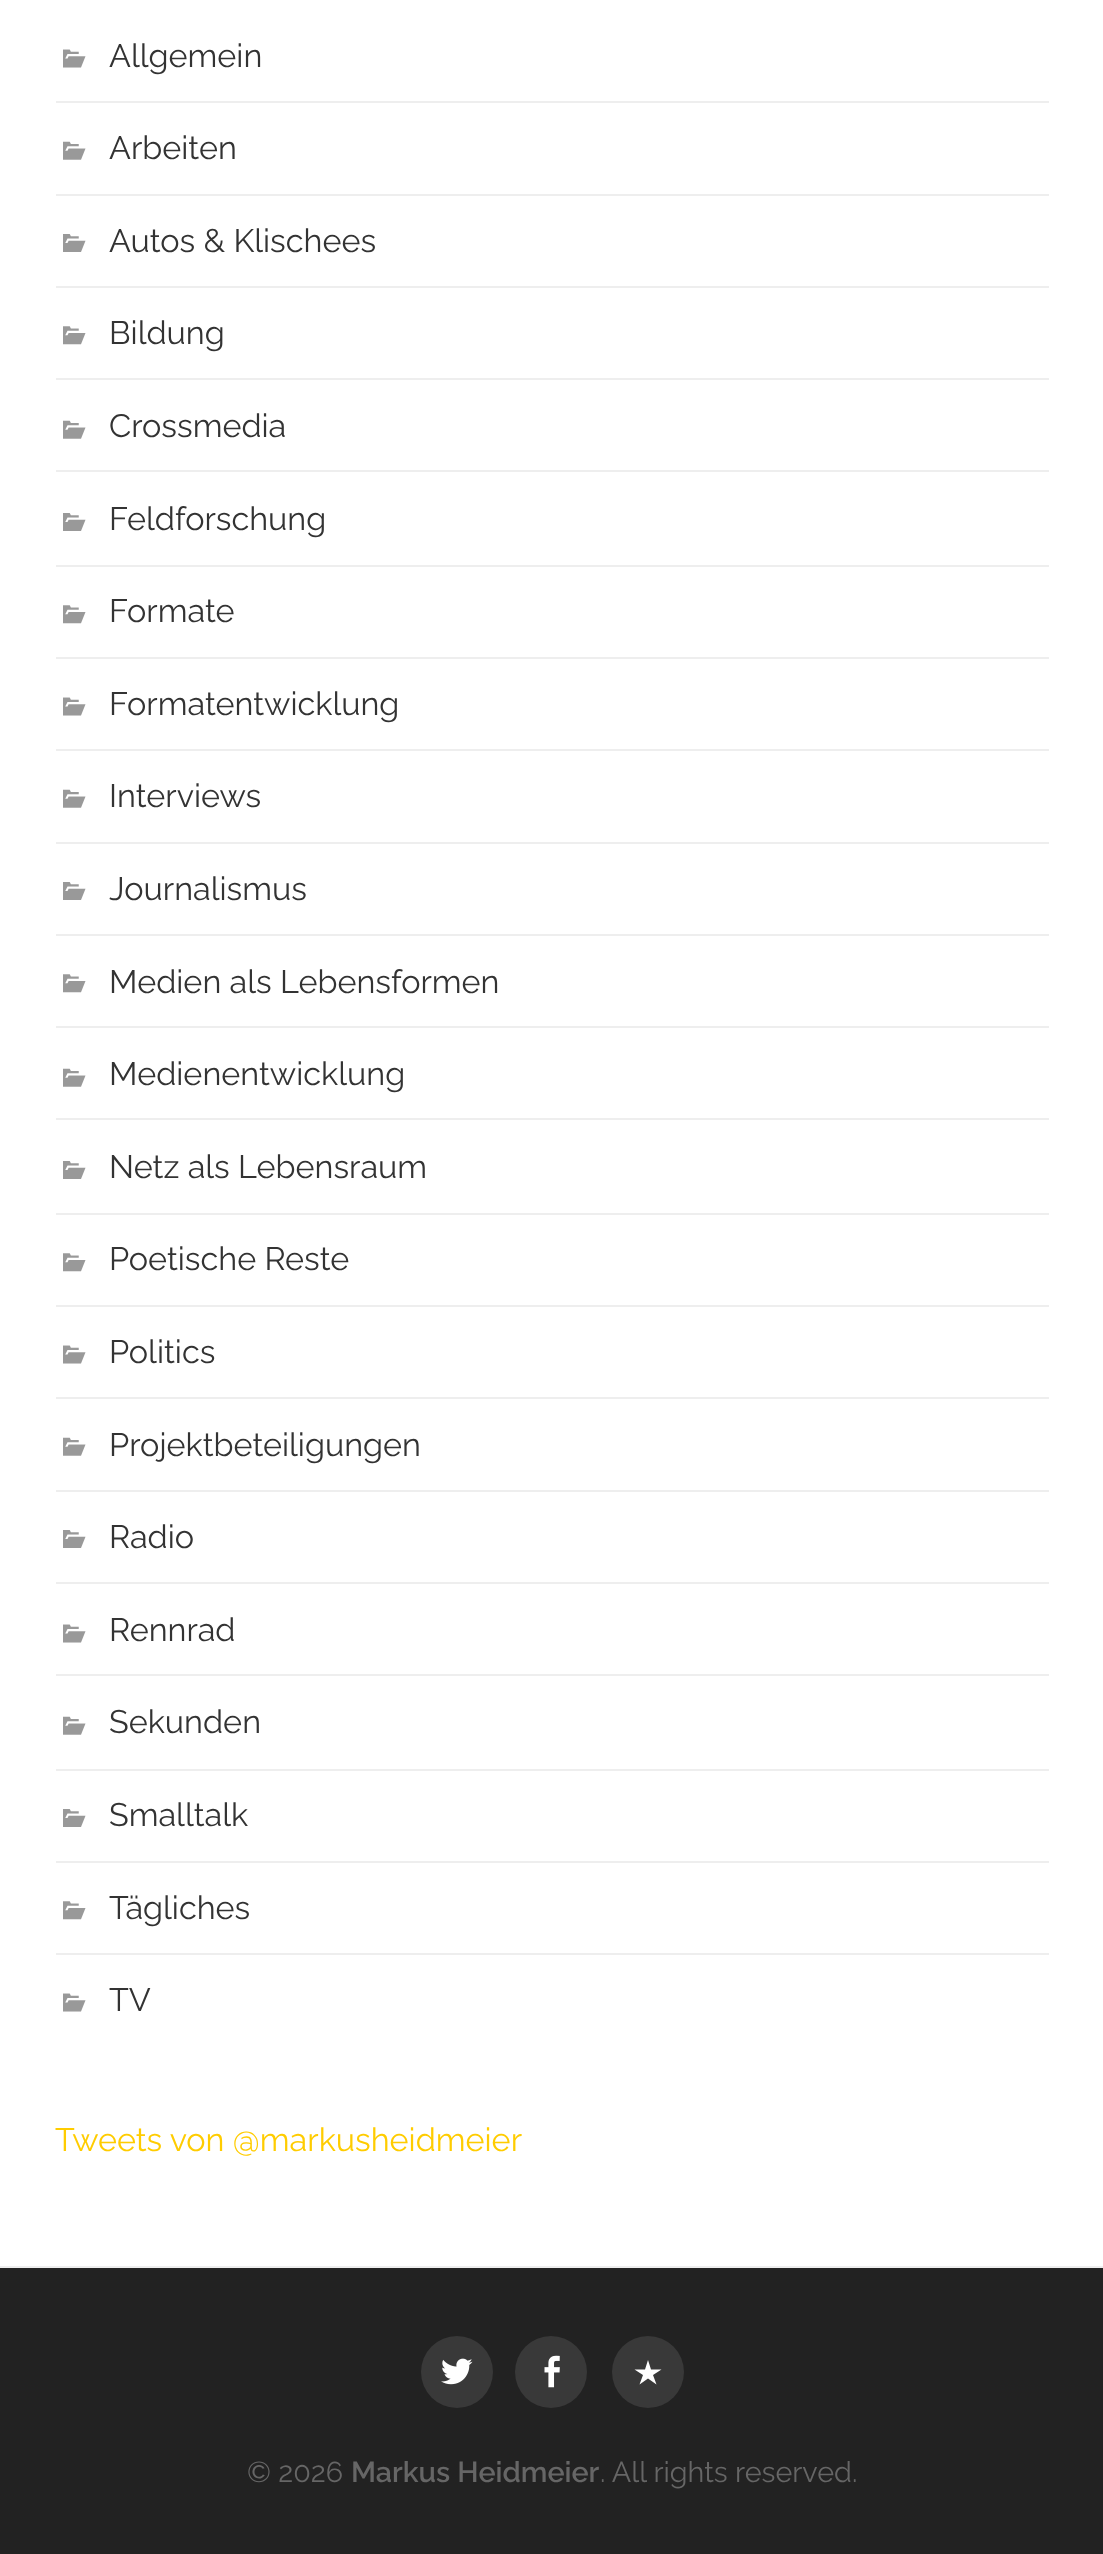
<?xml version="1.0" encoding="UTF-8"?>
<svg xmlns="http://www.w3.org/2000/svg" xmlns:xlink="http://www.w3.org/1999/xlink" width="1103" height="2554">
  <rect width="100%" height="100%" fill="#ffffff" />
  <rect x="56" y="101" width="993" height="2" fill="#eeeeee" />
  <image x="63" y="49" width="23" height="19" xlink:href="image1.png" />
  <rect x="56" y="194" width="993" height="2" fill="#eeeeee" />
  <image x="63" y="141" width="23" height="19" xlink:href="image2.png" />
  <rect x="56" y="286" width="993" height="2" fill="#eeeeee" />
  <image x="63" y="234" width="23" height="18" xlink:href="image3.png" />
  <rect x="56" y="378" width="993" height="2" fill="#eeeeee" />
  <image x="63" y="326" width="23" height="19" xlink:href="image4.png" />
  <rect x="56" y="470" width="993" height="2" fill="#eeeeee" />
  <image x="63" y="420" width="23" height="19" xlink:href="image2.png" />
  <rect x="56" y="565" width="993" height="2" fill="#eeeeee" />
  <image x="63" y="513" width="23" height="18" xlink:href="image3.png" />
  <rect x="56" y="657" width="993" height="2" fill="#eeeeee" />
  <image x="63" y="605" width="23" height="19" xlink:href="image4.png" />
  <rect x="56" y="749" width="993" height="2" fill="#eeeeee" />
  <image x="63" y="697" width="23" height="19" xlink:href="image1.png" />
  <rect x="56" y="842" width="993" height="2" fill="#eeeeee" />
  <image x="63" y="789" width="23" height="19" xlink:href="image2.png" />
  <rect x="56" y="934" width="993" height="2" fill="#eeeeee" />
  <image x="63" y="882" width="23" height="18" xlink:href="image3.png" />
  <rect x="56" y="1026" width="993" height="2" fill="#eeeeee" />
  <image x="63" y="974" width="23" height="19" xlink:href="image4.png" />
  <rect x="56" y="1118" width="993" height="2" fill="#eeeeee" />
  <image x="63" y="1068" width="23" height="19" xlink:href="image2.png" />
  <rect x="56" y="1213" width="993" height="2" fill="#eeeeee" />
  <image x="63" y="1161" width="23" height="18" xlink:href="image3.png" />
  <rect x="56" y="1305" width="993" height="2" fill="#eeeeee" />
  <image x="63" y="1253" width="23" height="19" xlink:href="image4.png" />
  <rect x="56" y="1397" width="993" height="2" fill="#eeeeee" />
  <image x="63" y="1345" width="23" height="19" xlink:href="image1.png" />
  <rect x="56" y="1490" width="993" height="2" fill="#eeeeee" />
  <image x="63" y="1437" width="23" height="19" xlink:href="image2.png" />
  <rect x="56" y="1582" width="993" height="2" fill="#eeeeee" />
  <image x="63" y="1530" width="23" height="18" xlink:href="image3.png" />
  <rect x="56" y="1674" width="993" height="2" fill="#eeeeee" />
  <image x="63" y="1624" width="23" height="19" xlink:href="image1.png" />
  <rect x="56" y="1769" width="993" height="2" fill="#eeeeee" />
  <image x="63" y="1716" width="23" height="19" xlink:href="image2.png" />
  <rect x="56" y="1861" width="993" height="2" fill="#eeeeee" />
  <image x="63" y="1809" width="23" height="18" xlink:href="image3.png" />
  <rect x="56" y="1953" width="993" height="2" fill="#eeeeee" />
  <image x="63" y="1901" width="23" height="19" xlink:href="image4.png" />
  <image x="63" y="1993" width="23" height="19" xlink:href="image1.png" />
  <rect y="2268" width="1103" height="286" fill="#222222" />
  <rect y="2266" width="1103" height="2" fill="#eeeeee" />
  <circle cx="457" cy="2372" r="36" fill="#393939" />
  <image x="441" y="2358" width="32" height="27" xlink:href="image5.png" />
  <circle cx="551" cy="2372" r="36" fill="#393939" />
  <image x="544" y="2355" width="16" height="33" xlink:href="image6.png" />
  <circle cx="648" cy="2372" r="36" fill="#393939" />
  <path d="M 661.5 2369.5 l -8.5 5.5 l 3.5 9.5 l -8.5 -6 l -8.5 6 l 3.5 -9.5 l -8.5 -5.5 h 10.5 l 3 -9.5 l 3 9.5 z" fill="#ffffff" />
  <text x="109" y="67" style="font-family: Raleway; font-size: 32.4px; fill: #333333">Allgemein</text>
  <text x="109" y="159" style="font-family: Raleway; font-size: 32.4px; fill: #333333">Arbeiten</text>
  <text x="109" y="252" style="font-family: Raleway; font-size: 32.4px; fill: #333333">Autos &amp; Klischees</text>
  <text x="109" y="344" style="font-family: Raleway; font-size: 32.4px; fill: #333333">Bildung</text>
  <text x="109" y="437" style="font-family: Raleway; font-size: 32.4px; fill: #333333">Crossmedia</text>
  <text x="109" y="530" style="font-family: Raleway; font-size: 32.4px; fill: #333333">Feldforschung</text>
  <text x="109" y="622" style="font-family: Raleway; font-size: 32.4px; fill: #333333">Formate</text>
  <text x="109" y="715" style="font-family: Raleway; font-size: 32.4px; fill: #333333">Formatentwicklung</text>
  <text x="109" y="807" style="font-family: Raleway; font-size: 32.4px; fill: #333333">Interviews</text>
  <text x="109" y="900" style="font-family: Raleway; font-size: 32.4px; fill: #333333">Journalismus</text>
  <text x="109" y="993" style="font-family: Raleway; font-size: 32.4px; fill: #333333">Medien als Lebensformen</text>
  <text x="109" y="1085" style="font-family: Raleway; font-size: 32.4px; fill: #333333">Medienentwicklung</text>
  <text x="109" y="1178" style="font-family: Raleway; font-size: 32.4px; fill: #333333">Netz als Lebensraum</text>
  <text x="109" y="1270" style="font-family: Raleway; font-size: 32.4px; fill: #333333">Poetische Reste</text>
  <text x="109" y="1363" style="font-family: Raleway; font-size: 32.4px; fill: #333333">Politics</text>
  <text x="109" y="1456" style="font-family: Raleway; font-size: 32.4px; fill: #333333">Projektbeteiligungen</text>
  <text x="109" y="1548" style="font-family: Raleway; font-size: 32.4px; fill: #333333">Radio</text>
  <text x="109" y="1641" style="font-family: Raleway; font-size: 32.4px; fill: #333333">Rennrad</text>
  <text x="109" y="1733" style="font-family: Raleway; font-size: 32.4px; fill: #333333">Sekunden</text>
  <text x="109" y="1826" style="font-family: Raleway; font-size: 32.4px; fill: #333333">Smalltalk</text>
  <text x="109" y="1919" style="font-family: Raleway; font-size: 32.4px; fill: #333333">Tägliches</text>
  <text x="109" y="2011" style="font-family: Raleway; font-size: 32.4px; fill: #333333">TV</text>
  <text x="55" y="2151" style="font-family: Raleway; font-size: 32.4px; fill: #ffcc00">Tweets von @markusheidmeier</text>
  <text x="247" y="2482" style="font-family: Raleway; font-size: 28.75px; fill: #666666">© 2026</text>
  <text x="351" y="2482" style="font-family: Raleway; font-size: 28.75px; font-weight: 600; fill: #666666">Markus Heidmeier</text>
  <text x="600" y="2482" style="font-family: Raleway; font-size: 28.75px; fill: #666666">. All rights reserved.</text>
</svg>
